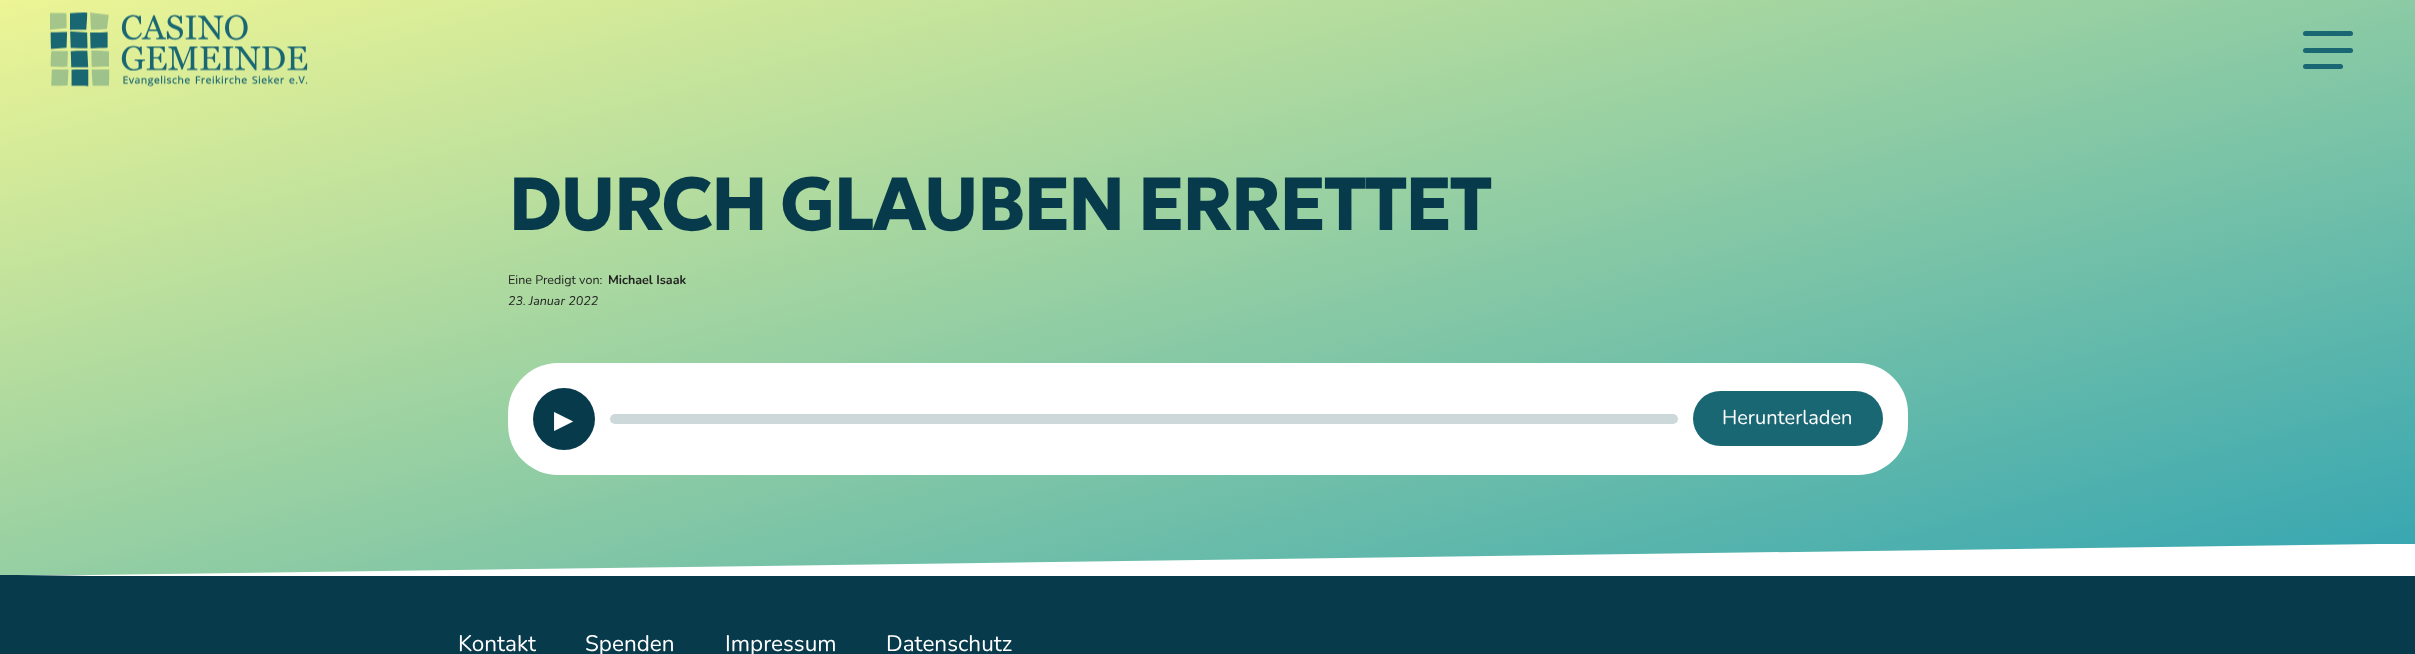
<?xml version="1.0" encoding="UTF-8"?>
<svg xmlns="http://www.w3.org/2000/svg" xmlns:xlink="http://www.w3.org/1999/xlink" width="2415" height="654">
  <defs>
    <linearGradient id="g1" gradientUnits="userSpaceOnUse" x1="1360" y1="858" x2="1055" y2="-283"><stop offset="0" stop-color="#34a5b2" /><stop offset="1" stop-color="#edf595" /></linearGradient>
  </defs>
  <rect width="100%" height="100%" fill="#073a4b" />
  <rect width="2415" height="575" fill="url(#g1)" />
  <image x="50" y="12" width="258" height="75" xlink:href="image1.png" />
  <rect x="2303" y="31" width="50" height="5" rx="2.5" fill="#1a6774" />
  <rect x="2303" y="48" width="50" height="5" rx="2.5" fill="#1a6774" />
  <rect x="2303" y="64" width="40" height="5" rx="2.5" fill="#1a6774" />
  <rect x="508" y="363" width="1400" height="112" rx="50" fill="#ffffff" />
  <circle cx="564" cy="419" r="31" fill="#073a4b" />
  <rect x="610" y="414" width="1068" height="10" rx="5" fill="#cdd8db" />
  <rect x="1693" y="391" width="190" height="55" rx="27.5" fill="#1a6774" />
  <path d="M 2415 576 v -32 h -36 l -2361 32 z" fill="#ffffff" />
  <text x="508" y="230" style="font-family: Geologica; font-size: 75px; font-weight: 100; letter-spacing: -3px; fill: #073a4b">DURCH GLAUBEN ERRETTET</text>
  <text x="508" y="284" style="font-family: Nunito; font-size: 12.5px; fill: #222222">Eine Predigt von:</text>
  <text x="608" y="284" style="font-family: Nunito; font-size: 12.5px; font-weight: bold; fill: #222222">Michael Isaak</text>
  <text x="508" y="305" style="font-family: Nunito; font-size: 12.5px; font-style: italic; fill: #222222">23. Januar 2022</text>
  <text x="554" y="428" style="font-family: DejaVu Sans; font-size: 25px; fill: #ffffff">▶</text>
  <text x="1722" y="424" style="font-family: Nunito; font-size: 20px; fill: #ffffff">Herunterladen</text>
  <text x="458" y="651" style="font-family: Nunito; font-size: 22.5px; fill: #ffffff">Kontakt</text>
  <text x="585" y="651" style="font-family: Nunito; font-size: 22.5px; fill: #ffffff">Spenden</text>
  <text x="725" y="651" style="font-family: Nunito; font-size: 22.5px; fill: #ffffff">Impressum</text>
  <text x="886" y="651" style="font-family: Nunito; font-size: 22.5px; fill: #ffffff">Datenschutz</text>
</svg>
